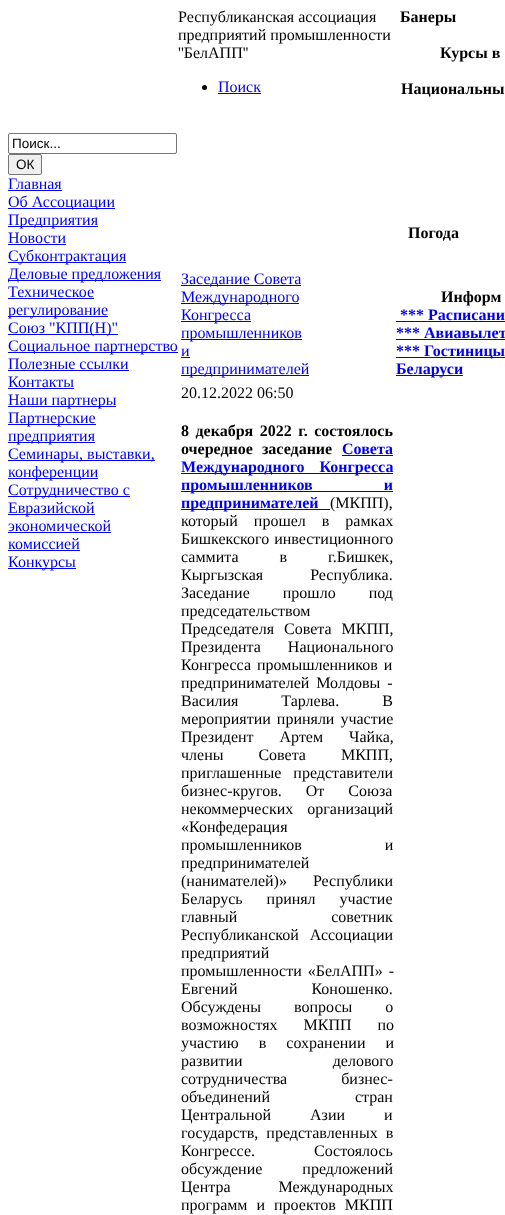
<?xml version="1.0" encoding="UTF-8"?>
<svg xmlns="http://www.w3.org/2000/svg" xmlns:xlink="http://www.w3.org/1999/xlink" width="505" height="1215">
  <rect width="100%" height="100%" fill="#ffffff" />
  <rect x="8.5" y="133.5" width="168" height="20" rx="1.5" fill="none" stroke="#767676" />
  <rect x="8.5" y="154.5" width="33" height="20" rx="1.5" fill="#efefef" stroke="#767676" />
  <rect x="8" y="190" width="54" height="1" fill="#0000ee" />
  <rect x="8" y="208" width="107" height="1" fill="#0000ee" />
  <rect x="8" y="226" width="90" height="1" fill="#0000ee" />
  <rect x="8" y="244" width="58" height="1" fill="#0000ee" />
  <rect x="8" y="262" width="118" height="1" fill="#0000ee" />
  <rect x="8" y="280" width="153" height="1" fill="#0000ee" />
  <rect x="8" y="298" width="86" height="1" fill="#0000ee" />
  <rect x="8" y="316" width="100" height="1" fill="#0000ee" />
  <rect x="8" y="334" width="110" height="1" fill="#0000ee" />
  <rect x="8" y="352" width="170" height="1" fill="#0000ee" />
  <rect x="8" y="370" width="121" height="1" fill="#0000ee" />
  <rect x="8" y="388" width="66" height="1" fill="#0000ee" />
  <rect x="8" y="406" width="108" height="1" fill="#0000ee" />
  <rect x="8" y="424" width="88" height="1" fill="#0000ee" />
  <rect x="8" y="442" width="87" height="1" fill="#0000ee" />
  <rect x="8" y="460" width="147" height="1" fill="#0000ee" />
  <rect x="8" y="478" width="90" height="1" fill="#0000ee" />
  <rect x="8" y="496" width="122" height="1" fill="#0000ee" />
  <rect x="8" y="514" width="87" height="1" fill="#0000ee" />
  <rect x="8" y="532" width="103" height="1" fill="#0000ee" />
  <rect x="8" y="550" width="72" height="1" fill="#0000ee" />
  <rect x="8" y="568" width="68" height="1" fill="#0000ee" />
  <circle cx="204.5" cy="87.5" r="2.5" fill="#000000" />
  <rect x="218" y="93" width="43" height="1" fill="#0000ee" />
  <rect x="181" y="285" width="120" height="1" fill="#0000ee" />
  <rect x="181" y="303" width="118" height="1" fill="#0000ee" />
  <rect x="181" y="321" width="70" height="1" fill="#0000ee" />
  <rect x="181" y="339" width="121" height="1" fill="#0000ee" />
  <rect x="181" y="357" width="9" height="1" fill="#0000ee" />
  <rect x="181" y="375" width="128" height="1" fill="#0000ee" />
  <rect x="342" y="455" width="51" height="1" fill="#0000ee" />
  <rect x="181" y="473" width="212" height="1" fill="#0000ee" />
  <rect x="181" y="491" width="212" height="1" fill="#0000ee" />
  <rect x="181" y="509" width="149" height="1" fill="#0000ee" />
  <rect x="396" y="321" width="109" height="1" fill="#0000ee" />
  <rect x="396" y="339" width="109" height="1" fill="#0000ee" />
  <rect x="396" y="357" width="109" height="1" fill="#0000ee" />
  <rect x="396" y="375" width="67" height="1" fill="#0000ee" />
  <text x="12" y="148" style="font-family: Liberation Sans; font-size: 13.5px; fill: #000000">Поиск...</text>
  <text x="16" y="169" style="font-family: Liberation Sans; font-size: 13.5px; fill: #000000">ОК</text>
  <text x="8" y="189" style="font-family: Liberation Serif; font-size: 16px; fill: #0000ee">Главная</text>
  <text x="8" y="207" style="font-family: Liberation Serif; font-size: 16px; fill: #0000ee">Об Ассоциации</text>
  <text x="8" y="225" style="font-family: Liberation Serif; font-size: 16px; fill: #0000ee">Предприятия</text>
  <text x="8" y="243" style="font-family: Liberation Serif; font-size: 16px; fill: #0000ee">Новости</text>
  <text x="8" y="261" style="font-family: Liberation Serif; font-size: 16px; fill: #0000ee">Субконтрактация</text>
  <text x="8" y="279" style="font-family: Liberation Serif; font-size: 16px; fill: #0000ee">Деловые предложения</text>
  <text x="8" y="297" style="font-family: Liberation Serif; font-size: 16px; fill: #0000ee">Техническое</text>
  <text x="8" y="315" style="font-family: Liberation Serif; font-size: 16px; fill: #0000ee">регулирование</text>
  <text x="8" y="333" style="font-family: Liberation Serif; font-size: 16px; fill: #0000ee">Союз "КПП(Н)"</text>
  <text x="8" y="351" style="font-family: Liberation Serif; font-size: 16px; fill: #0000ee">Социальное партнерство</text>
  <text x="8" y="369" style="font-family: Liberation Serif; font-size: 16px; fill: #0000ee">Полезные ссылки</text>
  <text x="8" y="387" style="font-family: Liberation Serif; font-size: 16px; fill: #0000ee">Контакты</text>
  <text x="8" y="405" style="font-family: Liberation Serif; font-size: 16px; fill: #0000ee">Наши партнеры</text>
  <text x="8" y="423" style="font-family: Liberation Serif; font-size: 16px; fill: #0000ee">Партнерские</text>
  <text x="8" y="441" style="font-family: Liberation Serif; font-size: 16px; fill: #0000ee">предприятия</text>
  <text x="8" y="459" style="font-family: Liberation Serif; font-size: 16px; fill: #0000ee">Семинары, выставки,</text>
  <text x="8" y="477" style="font-family: Liberation Serif; font-size: 16px; fill: #0000ee">конференции</text>
  <text x="8" y="495" style="font-family: Liberation Serif; font-size: 16px; fill: #0000ee">Сотрудничество с</text>
  <text x="8" y="513" style="font-family: Liberation Serif; font-size: 16px; fill: #0000ee">Евразийской</text>
  <text x="8" y="531" style="font-family: Liberation Serif; font-size: 16px; fill: #0000ee">экономической</text>
  <text x="8" y="549" style="font-family: Liberation Serif; font-size: 16px; fill: #0000ee">комиссией</text>
  <text x="8" y="567" style="font-family: Liberation Serif; font-size: 16px; fill: #0000ee">Конкурсы</text>
  <text x="178" y="22" style="font-family: Liberation Serif; font-size: 16px; fill: #000000">Республиканская ассоциация</text>
  <text x="178" y="40" style="font-family: Liberation Serif; font-size: 16px; fill: #000000">предприятий промышленности</text>
  <text x="178" y="58" style="font-family: Liberation Serif; font-size: 16px; fill: #000000">''БелАПП''</text>
  <text x="218" y="92" style="font-family: Liberation Serif; font-size: 16px; fill: #0000ee">Поиск</text>
  <text x="181" y="284" style="font-family: Liberation Serif; font-size: 16px; fill: #0000ee">Заседание Совета</text>
  <text x="181" y="302" style="font-family: Liberation Serif; font-size: 16px; fill: #0000ee">Международного</text>
  <text x="181" y="320" style="font-family: Liberation Serif; font-size: 16px; fill: #0000ee">Конгресса</text>
  <text x="181" y="338" style="font-family: Liberation Serif; font-size: 16px; fill: #0000ee">промышленников</text>
  <text x="181" y="356" style="font-family: Liberation Serif; font-size: 16px; fill: #0000ee">и</text>
  <text x="181" y="374" style="font-family: Liberation Serif; font-size: 16px; fill: #0000ee">предпринимателей</text>
  <text x="181" y="398" style="font-family: Liberation Serif; font-size: 16px; fill: #000000">20.12.2022 06:50</text>
  <text x="181" y="436" word-spacing="2.5" style="font-family: Liberation Serif; font-size: 16px; font-weight: bold; fill: #000000">8 декабря 2022 г. состоялось</text>
  <text x="181" y="454" word-spacing="5" style="font-family: Liberation Serif; font-size: 16px; font-weight: bold; fill: #000000">очередное заседание</text>
  <text x="342" y="454" style="font-family: Liberation Serif; font-size: 16px; font-weight: bold; fill: #0000ee">Совета</text>
  <text x="181" y="472" word-spacing="11" style="font-family: Liberation Serif; font-size: 16px; font-weight: bold; fill: #0000ee">Международного Конгресса</text>
  <text x="181" y="490" word-spacing="67" style="font-family: Liberation Serif; font-size: 16px; font-weight: bold; fill: #0000ee">промышленников и</text>
  <text x="181" y="508" style="font-family: Liberation Serif; font-size: 16px; font-weight: bold; fill: #0000ee">предпринимателей</text>
  <text x="330" y="508" style="font-family: Liberation Serif; font-size: 16px; fill: #000000">(МКПП),</text>
  <text x="181" y="526" word-spacing="12" style="font-family: Liberation Serif; font-size: 16px; fill: #000000">который прошел в рамках</text>
  <text x="181" y="544" word-spacing="1" style="font-family: Liberation Serif; font-size: 16px; fill: #000000">Бишкекского инвестиционного</text>
  <text x="181" y="562" word-spacing="37" style="font-family: Liberation Serif; font-size: 16px; fill: #000000">саммита в г.Бишкек,</text>
  <text x="181" y="580" word-spacing="43" style="font-family: Liberation Serif; font-size: 16px; fill: #000000">Кыргызская Республика.</text>
  <text x="181" y="598" word-spacing="29" style="font-family: Liberation Serif; font-size: 16px; fill: #000000">Заседание прошло под</text>
  <text x="181" y="616" style="font-family: Liberation Serif; font-size: 16px; fill: #000000">председательством</text>
  <text x="181" y="634" word-spacing="6" style="font-family: Liberation Serif; font-size: 16px; fill: #000000">Председателя Совета МКПП,</text>
  <text x="181" y="652" word-spacing="23" style="font-family: Liberation Serif; font-size: 16px; fill: #000000">Президента Национального</text>
  <text x="181" y="670" word-spacing="2" style="font-family: Liberation Serif; font-size: 16px; fill: #000000">Конгресса промышленников и</text>
  <text x="181" y="688" word-spacing="3" style="font-family: Liberation Serif; font-size: 16px; fill: #000000">предпринимателей Молдовы -</text>
  <text x="181" y="706" word-spacing="39" style="font-family: Liberation Serif; font-size: 16px; fill: #000000">Василия Тарлева. В</text>
  <text x="181" y="724" word-spacing="2" style="font-family: Liberation Serif; font-size: 16px; fill: #000000">мероприятии приняли участие</text>
  <text x="181" y="742" word-spacing="22" style="font-family: Liberation Serif; font-size: 16px; fill: #000000">Президент Артем Чайка,</text>
  <text x="181" y="760" word-spacing="31" style="font-family: Liberation Serif; font-size: 16px; fill: #000000">члены Совета МКПП,</text>
  <text x="181" y="778" word-spacing="8" style="font-family: Liberation Serif; font-size: 16px; fill: #000000">приглашенные представители</text>
  <text x="181" y="796" word-spacing="20" style="font-family: Liberation Serif; font-size: 16px; fill: #000000">бизнес-кругов. От Союза</text>
  <text x="181" y="814" word-spacing="10" style="font-family: Liberation Serif; font-size: 16px; fill: #000000">некоммерческих организаций</text>
  <text x="181" y="832" style="font-family: Liberation Serif; font-size: 16px; fill: #000000">«Конфедерация</text>
  <text x="181" y="850" word-spacing="79" style="font-family: Liberation Serif; font-size: 16px; fill: #000000">промышленников и</text>
  <text x="181" y="868" style="font-family: Liberation Serif; font-size: 16px; fill: #000000">предпринимателей</text>
  <text x="181" y="886" word-spacing="22" style="font-family: Liberation Serif; font-size: 16px; fill: #000000">(нанимателей)» Республики</text>
  <text x="181" y="904" word-spacing="20" style="font-family: Liberation Serif; font-size: 16px; fill: #000000">Беларусь принял участие</text>
  <text x="181" y="922" word-spacing="90" style="font-family: Liberation Serif; font-size: 16px; fill: #000000">главный советник</text>
  <text x="181" y="940" word-spacing="7" style="font-family: Liberation Serif; font-size: 16px; fill: #000000">Республиканской Ассоциации</text>
  <text x="181" y="958" style="font-family: Liberation Serif; font-size: 16px; fill: #000000">предприятий</text>
  <text x="181" y="976" word-spacing="2" style="font-family: Liberation Serif; font-size: 16px; fill: #000000">промышленности «БелАПП» -</text>
  <text x="181" y="994" word-spacing="70" style="font-family: Liberation Serif; font-size: 16px; fill: #000000">Евгений Коношенко.</text>
  <text x="181" y="1012" word-spacing="29" style="font-family: Liberation Serif; font-size: 16px; fill: #000000">Обсуждены вопросы о</text>
  <text x="181" y="1030" word-spacing="22" style="font-family: Liberation Serif; font-size: 16px; fill: #000000">возможностях МКПП по</text>
  <text x="181" y="1048" word-spacing="16" style="font-family: Liberation Serif; font-size: 16px; fill: #000000">участию в сохранении и</text>
  <text x="181" y="1066" word-spacing="86" style="font-family: Liberation Serif; font-size: 16px; fill: #000000">развитии делового</text>
  <text x="181" y="1084" word-spacing="50" style="font-family: Liberation Serif; font-size: 16px; fill: #000000">сотрудничества бизнес-</text>
  <text x="181" y="1102" word-spacing="81" style="font-family: Liberation Serif; font-size: 16px; fill: #000000">объединений стран</text>
  <text x="181" y="1120" word-spacing="35" style="font-family: Liberation Serif; font-size: 16px; fill: #000000">Центральной Азии и</text>
  <text x="181" y="1138" word-spacing="4" style="font-family: Liberation Serif; font-size: 16px; fill: #000000">государств, представленных в</text>
  <text x="181" y="1156" word-spacing="55" style="font-family: Liberation Serif; font-size: 16px; fill: #000000">Конгрессе. Состоялось</text>
  <text x="181" y="1174" word-spacing="36" style="font-family: Liberation Serif; font-size: 16px; fill: #000000">обсуждение предложений</text>
  <text x="181" y="1192" word-spacing="44" style="font-family: Liberation Serif; font-size: 16px; fill: #000000">Центра Международных</text>
  <text x="181" y="1210" word-spacing="5" style="font-family: Liberation Serif; font-size: 16px; fill: #000000">программ и проектов МКПП</text>
  <text x="400" y="22" style="font-family: Liberation Serif; font-size: 16px; font-weight: bold; fill: #000000">Банеры</text>
  <text x="440" y="58" style="font-family: Liberation Serif; font-size: 16px; font-weight: bold; fill: #000000">Курсы в</text>
  <text x="401" y="94" style="font-family: Liberation Serif; font-size: 16px; font-weight: bold; fill: #000000">Национальны</text>
  <text x="408" y="238" style="font-family: Liberation Serif; font-size: 16px; font-weight: bold; fill: #000000">Погода</text>
  <text x="441" y="302" style="font-family: Liberation Serif; font-size: 16px; font-weight: bold; fill: #000000">Информ</text>
  <text x="400" y="320" style="font-family: Liberation Serif; font-size: 16px; font-weight: bold; fill: #0000ee">*** Расписани</text>
  <text x="396" y="338" style="font-family: Liberation Serif; font-size: 16px; font-weight: bold; fill: #0000ee">*** Авиавылет</text>
  <text x="396" y="356" style="font-family: Liberation Serif; font-size: 16px; font-weight: bold; fill: #0000ee">*** Гостиницы</text>
  <text x="396" y="374" style="font-family: Liberation Serif; font-size: 16px; font-weight: bold; fill: #0000ee">Беларуси</text>
</svg>
